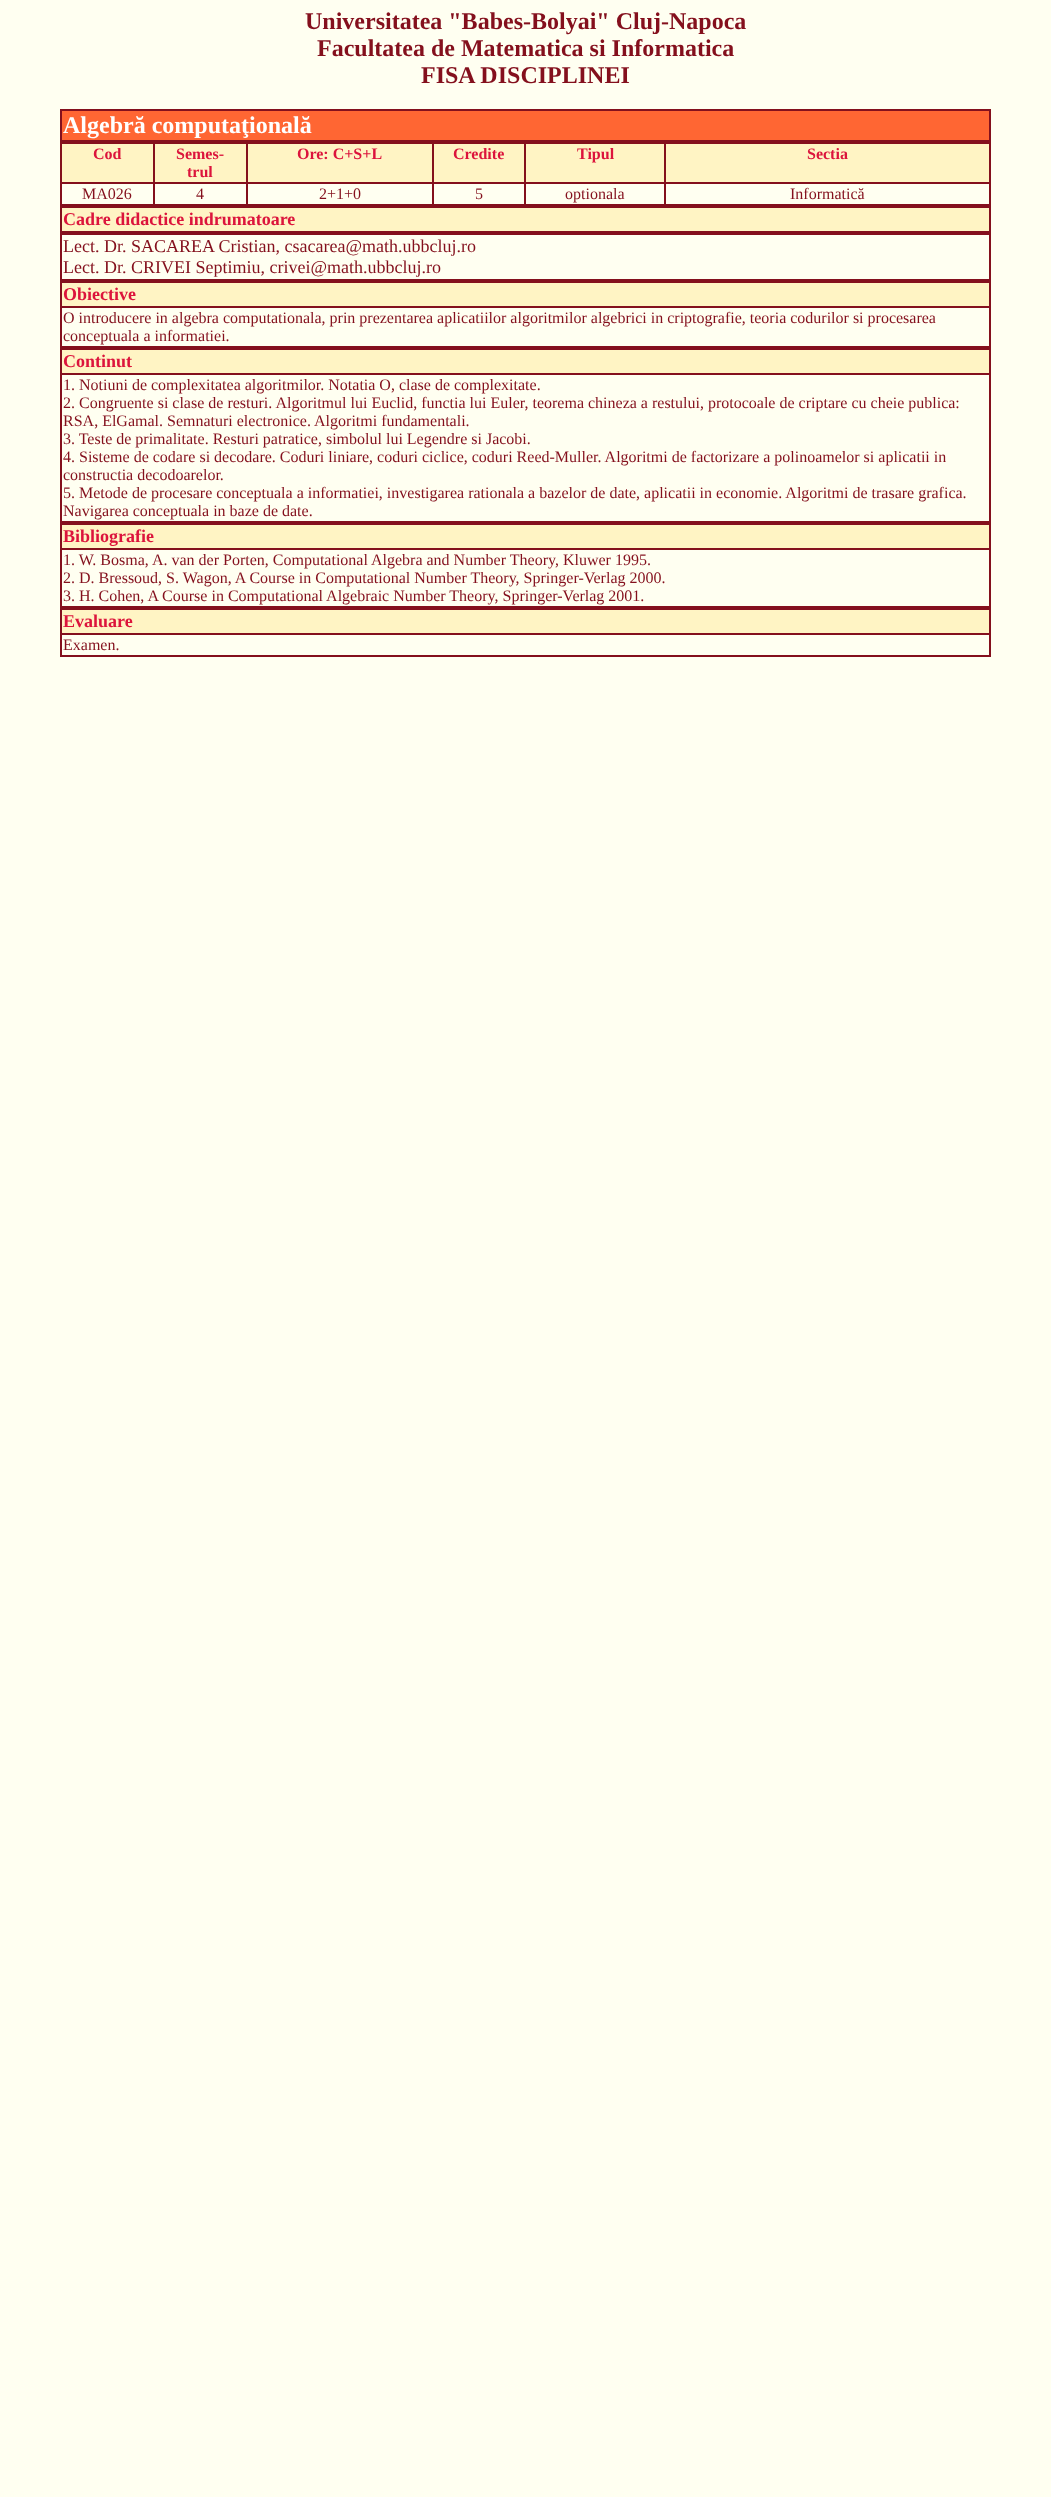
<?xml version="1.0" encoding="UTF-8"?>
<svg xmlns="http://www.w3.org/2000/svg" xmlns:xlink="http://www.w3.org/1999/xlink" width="1051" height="2497">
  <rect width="100%" height="100%" fill="#fffff1" />
  <rect x="60.5" y="109.5" width="930" height="32" fill="none" stroke="#84101d" />
  <rect x="61.5" y="110.5" width="928" height="30" fill="#ff6633" stroke="#84101d" />
  <rect x="60.5" y="142.5" width="930" height="63" fill="none" stroke="#84101d" />
  <rect x="61.5" y="143.5" width="92" height="39" fill="#fff4c4" stroke="#84101d" />
  <rect x="154.5" y="143.5" width="92" height="39" fill="#fff4c4" stroke="#84101d" />
  <rect x="247.5" y="143.5" width="185" height="39" fill="#fff4c4" stroke="#84101d" />
  <rect x="433.5" y="143.5" width="91" height="39" fill="#fff4c4" stroke="#84101d" />
  <rect x="525.5" y="143.5" width="139" height="39" fill="#fff4c4" stroke="#84101d" />
  <rect x="665.5" y="143.5" width="324" height="39" fill="#fff4c4" stroke="#84101d" />
  <rect x="61.5" y="183.5" width="92" height="21" fill="none" stroke="#84101d" />
  <rect x="154.5" y="183.5" width="92" height="21" fill="none" stroke="#84101d" />
  <rect x="247.5" y="183.5" width="185" height="21" fill="none" stroke="#84101d" />
  <rect x="433.5" y="183.5" width="91" height="21" fill="none" stroke="#84101d" />
  <rect x="525.5" y="183.5" width="139" height="21" fill="none" stroke="#84101d" />
  <rect x="665.5" y="183.5" width="324" height="21" fill="none" stroke="#84101d" />
  <rect x="60.5" y="206.5" width="930" height="26" fill="none" stroke="#84101d" />
  <rect x="61.5" y="207.5" width="928" height="24" fill="#fff4c4" stroke="#84101d" />
  <rect x="60.5" y="233.5" width="930" height="47" fill="none" stroke="#84101d" />
  <rect x="61.5" y="234.5" width="928" height="45" fill="none" stroke="#84101d" />
  <rect x="60.5" y="281.5" width="930" height="66" fill="none" stroke="#84101d" />
  <rect x="61.5" y="282.5" width="928" height="24" fill="#fff4c4" stroke="#84101d" />
  <rect x="61.5" y="307.5" width="928" height="39" fill="none" stroke="#84101d" />
  <rect x="60.5" y="348.5" width="930" height="174" fill="none" stroke="#84101d" />
  <rect x="61.5" y="349.5" width="928" height="24" fill="#fff4c4" stroke="#84101d" />
  <rect x="61.5" y="374.5" width="928" height="147" fill="none" stroke="#84101d" />
  <rect x="60.5" y="523.5" width="930" height="84" fill="none" stroke="#84101d" />
  <rect x="61.5" y="524.5" width="928" height="24" fill="#fff4c4" stroke="#84101d" />
  <rect x="61.5" y="549.5" width="928" height="57" fill="none" stroke="#84101d" />
  <rect x="60.5" y="608.5" width="930" height="48" fill="none" stroke="#84101d" />
  <rect x="61.5" y="609.5" width="928" height="24" fill="#fff4c4" stroke="#84101d" />
  <rect x="61.5" y="634.5" width="928" height="21" fill="none" stroke="#84101d" />
  <text x="305" y="29" style="font-family: Liberation Serif; font-size: 24px; font-weight: bold; fill: #84101d">Universitatea "Babes-Bolyai" Cluj-Napoca</text>
  <text x="317" y="56" style="font-family: Liberation Serif; font-size: 24px; font-weight: bold; fill: #84101d">Facultatea de Matematica si Informatica</text>
  <text x="421" y="83" style="font-family: Liberation Serif; font-size: 24px; font-weight: bold; fill: #84101d">FISA DISCIPLINEI</text>
  <text x="63" y="133" style="font-family: Liberation Serif; font-size: 24px; font-weight: bold; fill: #ffffff">Algebră computaţională</text>
  <text x="93" y="159" style="font-family: Liberation Serif; font-size: 16px; font-weight: bold; fill: #dc143c">Cod</text>
  <text x="176" y="159" style="font-family: Liberation Serif; font-size: 16px; font-weight: bold; fill: #dc143c">Semes-</text>
  <text x="187" y="177" style="font-family: Liberation Serif; font-size: 16px; font-weight: bold; fill: #dc143c">trul</text>
  <text x="297" y="159" style="font-family: Liberation Serif; font-size: 16px; font-weight: bold; fill: #dc143c">Ore: C+S+L</text>
  <text x="453" y="159" style="font-family: Liberation Serif; font-size: 16px; font-weight: bold; fill: #dc143c">Credite</text>
  <text x="577" y="159" style="font-family: Liberation Serif; font-size: 16px; font-weight: bold; fill: #dc143c">Tipul</text>
  <text x="807" y="159" style="font-family: Liberation Serif; font-size: 16px; font-weight: bold; fill: #dc143c">Sectia</text>
  <text x="82" y="199" style="font-family: Liberation Serif; font-size: 16px; fill: #84101d">MA026</text>
  <text x="196" y="199" style="font-family: Liberation Serif; font-size: 16px; fill: #84101d">4</text>
  <text x="319" y="199" style="font-family: Liberation Serif; font-size: 16px; fill: #84101d">2+1+0</text>
  <text x="475" y="199" style="font-family: Liberation Serif; font-size: 16px; fill: #84101d">5</text>
  <text x="565" y="199" style="font-family: Liberation Serif; font-size: 16px; fill: #84101d">optionala</text>
  <text x="790" y="199" style="font-family: Liberation Serif; font-size: 16px; fill: #84101d">Informatică</text>
  <text x="63" y="225" style="font-family: Liberation Serif; font-size: 18px; font-weight: bold; fill: #dc143c">Cadre didactice indrumatoare</text>
  <text x="63" y="252" style="font-family: Liberation Serif; font-size: 18px; fill: #84101d">Lect. Dr. SACAREA Cristian, csacarea@math.ubbcluj.ro</text>
  <text x="63" y="273" style="font-family: Liberation Serif; font-size: 18px; fill: #84101d">Lect. Dr. CRIVEI Septimiu, crivei@math.ubbcluj.ro</text>
  <text x="63" y="300" style="font-family: Liberation Serif; font-size: 18px; font-weight: bold; fill: #dc143c">Obiective</text>
  <text x="63" y="323" style="font-family: Liberation Serif; font-size: 16px; fill: #84101d">O introducere in algebra computationala, prin prezentarea aplicatiilor algoritmilor algebrici in criptografie, teoria codurilor si procesarea</text>
  <text x="63" y="341" style="font-family: Liberation Serif; font-size: 16px; fill: #84101d">conceptuala a informatiei.</text>
  <text x="63" y="367" style="font-family: Liberation Serif; font-size: 18px; font-weight: bold; fill: #dc143c">Continut</text>
  <text x="63" y="390" style="font-family: Liberation Serif; font-size: 16px; fill: #84101d">1. Notiuni de complexitatea algoritmilor. Notatia O, clase de complexitate.</text>
  <text x="63" y="408" style="font-family: Liberation Serif; font-size: 16px; fill: #84101d">2. Congruente si clase de resturi. Algoritmul lui Euclid, functia lui Euler, teorema chineza a restului, protocoale de criptare cu cheie publica:</text>
  <text x="63" y="426" style="font-family: Liberation Serif; font-size: 16px; fill: #84101d">RSA, ElGamal. Semnaturi electronice. Algoritmi fundamentali.</text>
  <text x="63" y="444" style="font-family: Liberation Serif; font-size: 16px; fill: #84101d">3. Teste de primalitate. Resturi patratice, simbolul lui Legendre si Jacobi.</text>
  <text x="63" y="462" style="font-family: Liberation Serif; font-size: 16px; fill: #84101d">4. Sisteme de codare si decodare. Coduri liniare, coduri ciclice, coduri Reed-Muller. Algoritmi de factorizare a polinoamelor si aplicatii in</text>
  <text x="63" y="480" style="font-family: Liberation Serif; font-size: 16px; fill: #84101d">constructia decodoarelor.</text>
  <text x="63" y="498" style="font-family: Liberation Serif; font-size: 16px; fill: #84101d">5. Metode de procesare conceptuala a informatiei, investigarea rationala a bazelor de date, aplicatii in economie. Algoritmi de trasare grafica.</text>
  <text x="63" y="516" style="font-family: Liberation Serif; font-size: 16px; fill: #84101d">Navigarea conceptuala in baze de date.</text>
  <text x="63" y="542" style="font-family: Liberation Serif; font-size: 18px; font-weight: bold; fill: #dc143c">Bibliografie</text>
  <text x="63" y="565" style="font-family: Liberation Serif; font-size: 16px; fill: #84101d">1. W. Bosma, A. van der Porten, Computational Algebra and Number Theory, Kluwer 1995.</text>
  <text x="63" y="583" style="font-family: Liberation Serif; font-size: 16px; fill: #84101d">2. D. Bressoud, S. Wagon, A Course in Computational Number Theory, Springer-Verlag 2000.</text>
  <text x="63" y="601" style="font-family: Liberation Serif; font-size: 16px; fill: #84101d">3. H. Cohen, A Course in Computational Algebraic Number Theory, Springer-Verlag 2001.</text>
  <text x="63" y="627" style="font-family: Liberation Serif; font-size: 18px; font-weight: bold; fill: #dc143c">Evaluare</text>
  <text x="63" y="650" style="font-family: Liberation Serif; font-size: 16px; fill: #84101d">Examen.</text>
</svg>
